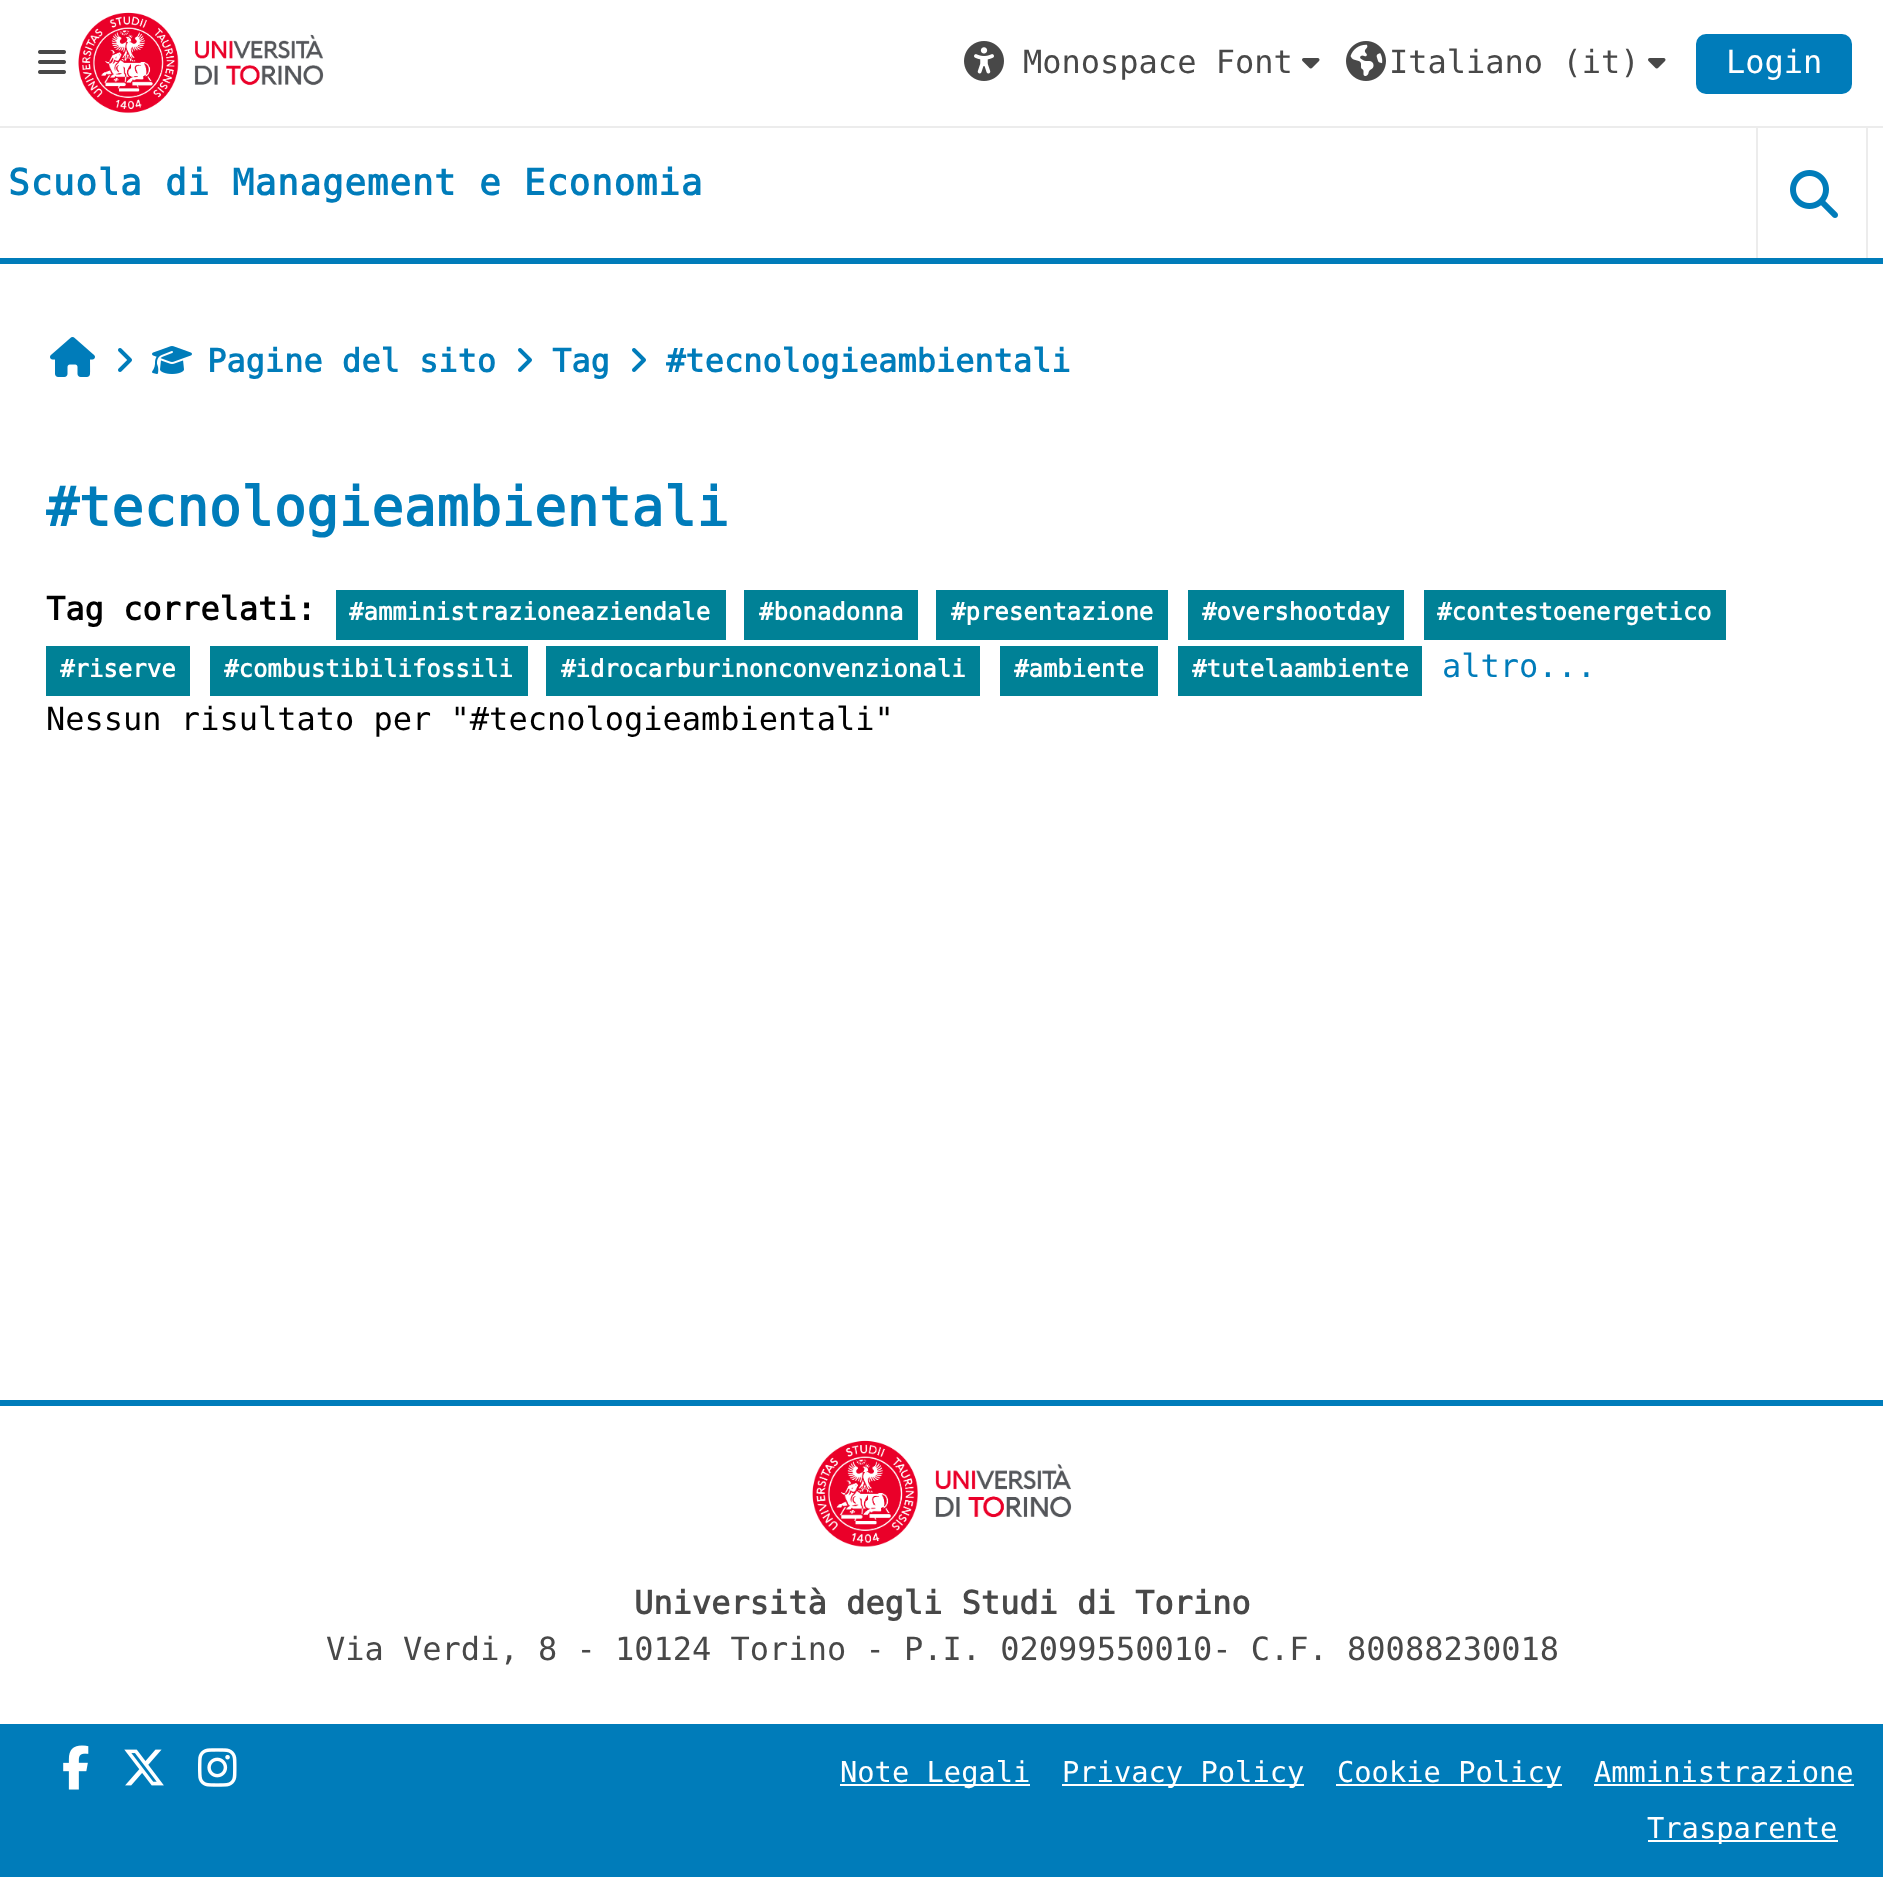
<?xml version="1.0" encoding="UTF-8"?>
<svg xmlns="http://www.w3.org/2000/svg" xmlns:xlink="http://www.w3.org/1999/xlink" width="1883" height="1877">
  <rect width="100%" height="100%" fill="#ffffff" />
  <rect y="258" width="1883" height="6" fill="#007cba" />
  <rect y="126" width="1883" height="2" fill="#ececec" />
  <image x="38" y="50" width="28" height="24" xlink:href="image1.png" />
  <image x="78" y="12" width="246" height="102" xlink:href="image2.png" />
  <image x="964" y="41" width="40" height="40" xlink:href="image3.png" />
  <image x="1302" y="58" width="18" height="11" xlink:href="image4.png" />
  <image x="1346" y="41" width="40" height="40" xlink:href="image5.png" />
  <image x="1648" y="58" width="18" height="11" xlink:href="image4.png" />
  <rect x="1696" y="34" width="156" height="60" rx="10" fill="#007cba" />
  <rect x="1866" y="128" width="2" height="130" fill="#ececec" />
  <rect x="1756" y="128" width="2" height="130" fill="#ececec" />
  <image x="1790" y="170" width="48" height="48" xlink:href="image6.png" />
  <image x="50" y="337" width="45" height="40" xlink:href="image7.png" />
  <image x="118" y="348" width="14" height="24" xlink:href="image8.png" />
  <image x="152" y="346" width="40" height="28" xlink:href="image9.png" />
  <image x="518" y="348" width="14" height="24" xlink:href="image8.png" />
  <image x="632" y="348" width="14" height="24" xlink:href="image8.png" />
  <rect x="336" y="590" width="390" height="50" fill="#008196" />
  <rect x="744" y="590" width="174" height="50" fill="#008196" />
  <rect x="936" y="590" width="232" height="50" fill="#008196" />
  <rect x="1188" y="590" width="216" height="50" fill="#008196" />
  <rect x="1424" y="590" width="302" height="50" fill="#008196" />
  <rect x="46" y="646" width="144" height="50" fill="#008196" />
  <rect x="210" y="646" width="318" height="50" fill="#008196" />
  <rect x="546" y="646" width="434" height="50" fill="#008196" />
  <rect x="1000" y="646" width="158" height="50" fill="#008196" />
  <rect x="1178" y="646" width="244" height="50" fill="#008196" />
  <rect y="1400" width="1883" height="6" fill="#007cba" />
  <image x="812" y="1440" width="260" height="107" xlink:href="image10.png" />
  <rect y="1724" width="1883" height="153" fill="#007cba" />
  <image x="63" y="1745" width="26" height="45" xlink:href="image11.png" />
  <image x="124" y="1749" width="40" height="37" xlink:href="image12.png" />
  <image x="198" y="1748" width="39" height="39" xlink:href="image13.png" />
  <rect x="840" y="1784" width="190" height="2" fill="#ffffff" />
  <rect x="1062" y="1784" width="242" height="2" fill="#ffffff" />
  <rect x="1336" y="1784" width="226" height="2" fill="#ffffff" />
  <rect x="1594" y="1784" width="260" height="2" fill="#ffffff" />
  <rect x="1648" y="1840" width="190" height="2" fill="#ffffff" />
  <text x="1023" y="73" style="font-family: DejaVu Sans Mono; font-size: 32px; fill: #484848">Monospace Font</text>
  <text x="1389" y="73" style="font-family: DejaVu Sans Mono; font-size: 32px; fill: #484848">Italiano (it)</text>
  <text x="1726" y="73" style="font-family: DejaVu Sans Mono; font-size: 32px; fill: #ffffff">Login</text>
  <text x="8" y="195" style="font-family: DejaVu Sans Mono; font-size: 36px; font-weight: bold; letter-spacing: 0.75px; fill: #007cba">Scuola di Management e Economia</text>
  <text x="207" y="372" style="font-family: DejaVu Sans Mono; font-size: 32px; font-weight: bold; fill: #007cba">Pagine del sito</text>
  <text x="552" y="372" style="font-family: DejaVu Sans Mono; font-size: 32px; font-weight: bold; fill: #007cba">Tag</text>
  <text x="666" y="372" style="font-family: DejaVu Sans Mono; font-size: 32px; font-weight: bold; fill: #007cba">#tecnologieambientali</text>
  <text x="46" y="526" style="font-family: DejaVu Sans Mono; font-size: 54px; font-weight: bold; fill: #007cba">#tecnologieambientali</text>
  <text x="46" y="620" style="font-family: DejaVu Sans Mono; font-size: 32px; font-weight: bold; fill: #000000">Tag correlati:</text>
  <text x="349" y="620" style="font-family: DejaVu Sans Mono; font-size: 24px; font-weight: bold; fill: #ffffff">#amministrazioneaziendale</text>
  <text x="759" y="620" style="font-family: DejaVu Sans Mono; font-size: 24px; font-weight: bold; fill: #ffffff">#bonadonna</text>
  <text x="951" y="620" style="font-family: DejaVu Sans Mono; font-size: 24px; font-weight: bold; fill: #ffffff">#presentazione</text>
  <text x="1202" y="620" style="font-family: DejaVu Sans Mono; font-size: 24px; font-weight: bold; fill: #ffffff">#overshootday</text>
  <text x="1437" y="620" style="font-family: DejaVu Sans Mono; font-size: 24px; font-weight: bold; fill: #ffffff">#contestoenergetico</text>
  <text x="60" y="677" style="font-family: DejaVu Sans Mono; font-size: 24px; font-weight: bold; fill: #ffffff">#riserve</text>
  <text x="224" y="677" style="font-family: DejaVu Sans Mono; font-size: 24px; font-weight: bold; fill: #ffffff">#combustibilifossili</text>
  <text x="561" y="677" style="font-family: DejaVu Sans Mono; font-size: 24px; font-weight: bold; fill: #ffffff">#idrocarburinonconvenzionali</text>
  <text x="1014" y="677" style="font-family: DejaVu Sans Mono; font-size: 24px; font-weight: bold; fill: #ffffff">#ambiente</text>
  <text x="1192" y="677" style="font-family: DejaVu Sans Mono; font-size: 24px; font-weight: bold; fill: #ffffff">#tutelaambiente</text>
  <text x="1442" y="677" style="font-family: DejaVu Sans Mono; font-size: 32px; fill: #007cba">altro...</text>
  <text x="46" y="730" style="font-family: DejaVu Sans Mono; font-size: 32px; fill: #000000">Nessun risultato per "#tecnologieambientali"</text>
  <text x="634" y="1614" style="font-family: DejaVu Sans Mono; font-size: 32px; font-weight: bold; fill: #484848">Università degli Studi di Torino</text>
  <text x="326" y="1660" style="font-family: DejaVu Sans Mono; font-size: 32px; fill: #484848">Via Verdi, 8 - 10124 Torino - P.I. 02099550010- C.F. 80088230018</text>
  <text x="840" y="1782" style="font-family: DejaVu Sans Mono; font-size: 28.75px; fill: #ffffff">Note Legali</text>
  <text x="1062" y="1782" style="font-family: DejaVu Sans Mono; font-size: 28.75px; fill: #ffffff">Privacy Policy</text>
  <text x="1337" y="1782" style="font-family: DejaVu Sans Mono; font-size: 28.75px; fill: #ffffff">Cookie Policy</text>
  <text x="1594" y="1782" style="font-family: DejaVu Sans Mono; font-size: 28.75px; fill: #ffffff">Amministrazione</text>
  <text x="1647" y="1838" style="font-family: DejaVu Sans Mono; font-size: 28.75px; fill: #ffffff">Trasparente</text>
</svg>
